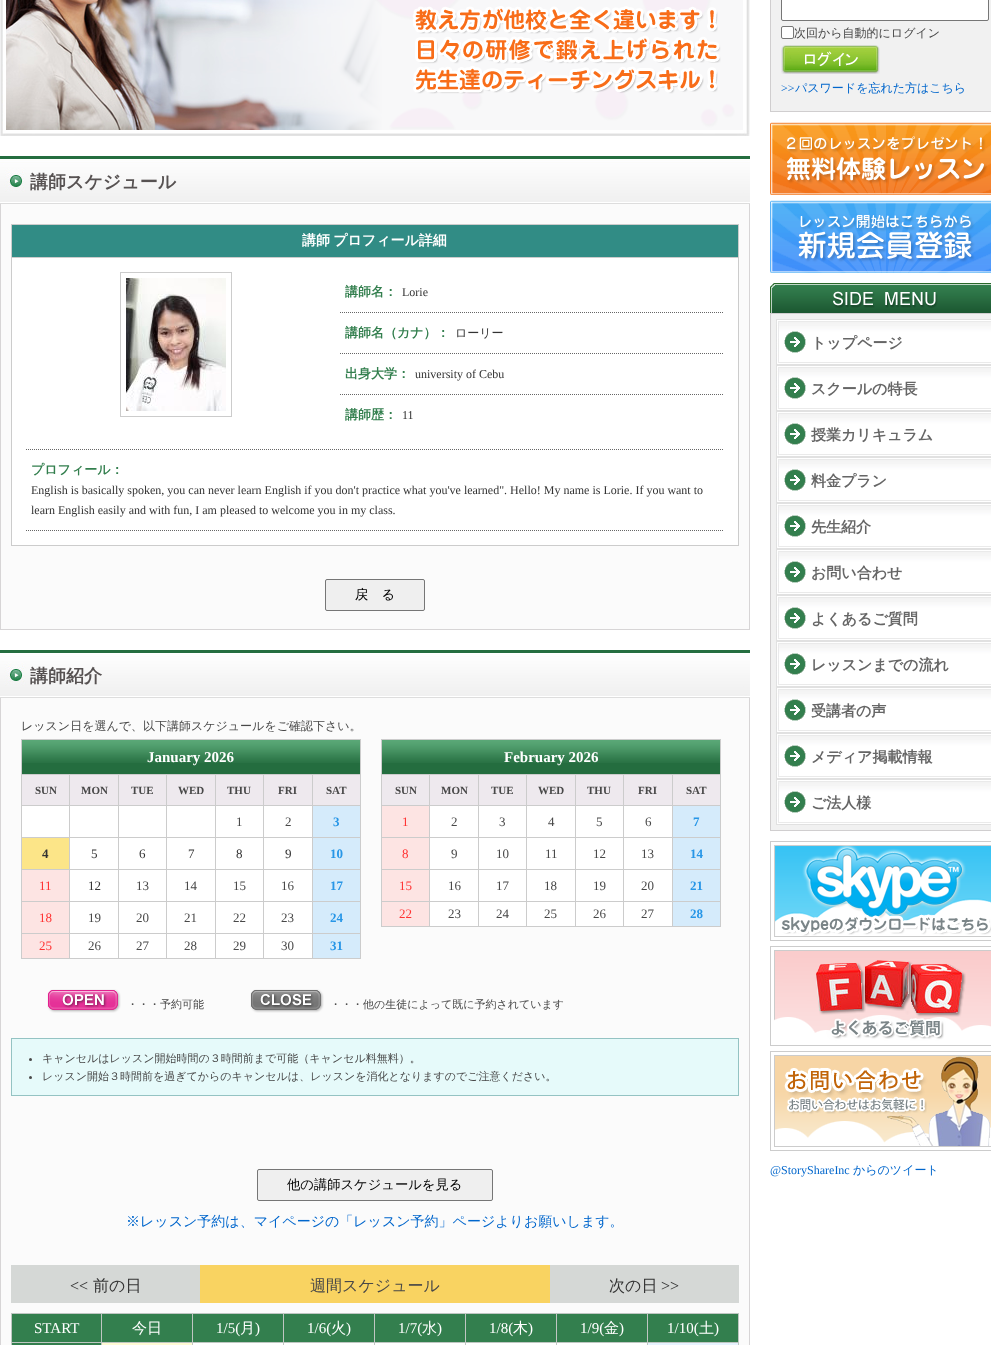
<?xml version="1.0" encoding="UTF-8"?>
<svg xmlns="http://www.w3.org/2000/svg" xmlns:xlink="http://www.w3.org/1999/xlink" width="991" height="1345">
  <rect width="100%" height="100%" fill="#ffffff" />
  <image x="0" y="0" width="750" height="136" xlink:href="image1.png" />
  <image x="0" y="156" width="750" height="48" xlink:href="image2.png" />
  <rect x="1" y="204" width="748" height="425" fill="#fbfbfb" />
  <rect x="749" y="204" width="1" height="426" fill="#d7d5d6" />
  <rect y="629" width="750" height="1" fill="#d7d5d6" />
  <rect y="204" width="1" height="426" fill="#d7d5d6" />
  <rect x="11" y="224" width="728" height="1" fill="#cccccc" />
  <rect x="738" y="224" width="1" height="322" fill="#cccccc" />
  <rect x="11" y="545" width="728" height="1" fill="#cccccc" />
  <rect x="11" y="224" width="1" height="322" fill="#cccccc" />
  <rect x="12" y="225" width="726" height="32" fill="#318c85" />
  <rect x="11" y="257" width="728" height="1" fill="#cccccc" />
  <rect x="12" y="258" width="726" height="287" fill="#ffffff" />
  <rect x="120.5" y="272.5" width="111" height="144" fill="none" stroke="#cccccc" />
  <image x="126" y="278" width="100" height="133" xlink:href="image3.png" />
  <path d="M 340 312.5 h 384" fill="none" stroke="#666666" stroke-dasharray="1 1" />
  <path d="M 340 353.5 h 384" fill="none" stroke="#666666" stroke-dasharray="1 1" />
  <path d="M 340 394.5 h 384" fill="none" stroke="#666666" stroke-dasharray="1 1" />
  <path d="M 26 449.5 h 698" fill="none" stroke="#666666" stroke-dasharray="1 1" />
  <path d="M 26 530.5 h 698" fill="none" stroke="#666666" stroke-dasharray="1 1" />
  <rect x="325.5" y="579.5" width="99" height="31" rx="1.5" fill="#efefef" stroke="#767676" />
  <image x="0" y="650" width="750" height="48" xlink:href="image2.png" />
  <rect x="1" y="698" width="748" height="647" fill="#fbfbfb" />
  <rect x="749" y="698" width="1" height="647" fill="#d7d5d6" />
  <rect y="698" width="1" height="647" fill="#d7d5d6" />
  <rect x="21" y="774" width="339" height="184" fill="#cccccc" />
  <rect x="22" y="763" width="338" height="11" fill="#246d3f" />
  <image x="22" y="740" width="338" height="23" xlink:href="image4.png" />
  <rect x="21" y="739" width="340" height="1" fill="#cccccc" />
  <rect x="360" y="739" width="1" height="35" fill="#cccccc" />
  <rect x="21" y="739" width="1" height="35" fill="#cccccc" />
  <rect x="22" y="775" width="47" height="30" fill="#eee9ee" />
  <rect x="70" y="775" width="48" height="30" fill="#eee9ee" />
  <rect x="119" y="775" width="47" height="30" fill="#eee9ee" />
  <rect x="167" y="775" width="48" height="30" fill="#eee9ee" />
  <rect x="216" y="775" width="47" height="30" fill="#eee9ee" />
  <rect x="264" y="775" width="48" height="30" fill="#eee9ee" />
  <rect x="313" y="775" width="47" height="30" fill="#eee9ee" />
  <rect x="22" y="806" width="47" height="31" fill="#ffffff" />
  <rect x="70" y="806" width="48" height="31" fill="#ffffff" />
  <rect x="119" y="806" width="47" height="31" fill="#ffffff" />
  <rect x="167" y="806" width="48" height="31" fill="#ffffff" />
  <rect x="216" y="806" width="47" height="31" fill="#ffffff" />
  <rect x="264" y="806" width="48" height="31" fill="#ffffff" />
  <rect x="313" y="806" width="47" height="31" fill="#d5ebfb" />
  <rect x="360" y="933" width="1" height="26" fill="#cccccc" />
  <rect x="360" y="901" width="1" height="33" fill="#cccccc" />
  <rect x="360" y="869" width="1" height="33" fill="#cccccc" />
  <rect x="360" y="837" width="1" height="33" fill="#cccccc" />
  <rect x="360" y="774" width="1" height="64" fill="#cccccc" />
  <rect x="22" y="838" width="47" height="31" fill="#fce588" />
  <rect x="70" y="838" width="48" height="31" fill="#ffffff" />
  <rect x="119" y="838" width="47" height="31" fill="#ffffff" />
  <rect x="167" y="838" width="48" height="31" fill="#ffffff" />
  <rect x="216" y="838" width="47" height="31" fill="#ffffff" />
  <rect x="264" y="838" width="48" height="31" fill="#ffffff" />
  <rect x="313" y="838" width="47" height="31" fill="#d5ebfb" />
  <rect x="22" y="870" width="47" height="31" fill="#fde4e3" />
  <rect x="70" y="870" width="48" height="31" fill="#ffffff" />
  <rect x="119" y="870" width="47" height="31" fill="#ffffff" />
  <rect x="167" y="870" width="48" height="31" fill="#ffffff" />
  <rect x="216" y="870" width="47" height="31" fill="#ffffff" />
  <rect x="264" y="870" width="48" height="31" fill="#ffffff" />
  <rect x="313" y="870" width="47" height="31" fill="#d5ebfb" />
  <rect x="22" y="902" width="47" height="31" fill="#fde4e3" />
  <rect x="70" y="902" width="48" height="31" fill="#ffffff" />
  <rect x="119" y="902" width="47" height="31" fill="#ffffff" />
  <rect x="167" y="902" width="48" height="31" fill="#ffffff" />
  <rect x="216" y="902" width="47" height="31" fill="#ffffff" />
  <rect x="264" y="902" width="48" height="31" fill="#ffffff" />
  <rect x="313" y="902" width="47" height="31" fill="#d5ebfb" />
  <rect x="22" y="934" width="47" height="24" fill="#fde4e3" />
  <rect x="70" y="934" width="48" height="24" fill="#ffffff" />
  <rect x="119" y="934" width="47" height="24" fill="#ffffff" />
  <rect x="167" y="934" width="48" height="24" fill="#ffffff" />
  <rect x="216" y="934" width="47" height="24" fill="#ffffff" />
  <rect x="264" y="934" width="48" height="24" fill="#ffffff" />
  <rect x="313" y="934" width="47" height="24" fill="#d5ebfb" />
  <rect x="21" y="958" width="340" height="1" fill="#cccccc" />
  <rect x="381" y="774" width="339" height="152" fill="#cccccc" />
  <rect x="382" y="763" width="338" height="11" fill="#246d3f" />
  <image x="382" y="740" width="338" height="23" xlink:href="image4.png" />
  <rect x="381" y="739" width="340" height="1" fill="#cccccc" />
  <rect x="720" y="739" width="1" height="35" fill="#cccccc" />
  <rect x="381" y="739" width="1" height="35" fill="#cccccc" />
  <rect x="382" y="775" width="47" height="30" fill="#eee9ee" />
  <rect x="430" y="775" width="48" height="30" fill="#eee9ee" />
  <rect x="479" y="775" width="47" height="30" fill="#eee9ee" />
  <rect x="527" y="775" width="48" height="30" fill="#eee9ee" />
  <rect x="576" y="775" width="47" height="30" fill="#eee9ee" />
  <rect x="624" y="775" width="48" height="30" fill="#eee9ee" />
  <rect x="673" y="775" width="47" height="30" fill="#eee9ee" />
  <rect x="382" y="806" width="47" height="31" fill="#fde4e3" />
  <rect x="430" y="806" width="48" height="31" fill="#ffffff" />
  <rect x="479" y="806" width="47" height="31" fill="#ffffff" />
  <rect x="527" y="806" width="48" height="31" fill="#ffffff" />
  <rect x="576" y="806" width="47" height="31" fill="#ffffff" />
  <rect x="624" y="806" width="48" height="31" fill="#ffffff" />
  <rect x="673" y="806" width="47" height="31" fill="#d5ebfb" />
  <rect x="720" y="901" width="1" height="26" fill="#cccccc" />
  <rect x="720" y="869" width="1" height="33" fill="#cccccc" />
  <rect x="720" y="837" width="1" height="33" fill="#cccccc" />
  <rect x="720" y="774" width="1" height="64" fill="#cccccc" />
  <rect x="382" y="838" width="47" height="31" fill="#fde4e3" />
  <rect x="430" y="838" width="48" height="31" fill="#ffffff" />
  <rect x="479" y="838" width="47" height="31" fill="#ffffff" />
  <rect x="527" y="838" width="48" height="31" fill="#ffffff" />
  <rect x="576" y="838" width="47" height="31" fill="#ffffff" />
  <rect x="624" y="838" width="48" height="31" fill="#ffffff" />
  <rect x="673" y="838" width="47" height="31" fill="#d5ebfb" />
  <rect x="382" y="870" width="47" height="31" fill="#fde4e3" />
  <rect x="430" y="870" width="48" height="31" fill="#ffffff" />
  <rect x="479" y="870" width="47" height="31" fill="#ffffff" />
  <rect x="527" y="870" width="48" height="31" fill="#ffffff" />
  <rect x="576" y="870" width="47" height="31" fill="#ffffff" />
  <rect x="624" y="870" width="48" height="31" fill="#ffffff" />
  <rect x="673" y="870" width="47" height="31" fill="#d5ebfb" />
  <rect x="382" y="902" width="47" height="24" fill="#fde4e3" />
  <rect x="430" y="902" width="48" height="24" fill="#ffffff" />
  <rect x="479" y="902" width="47" height="24" fill="#ffffff" />
  <rect x="527" y="902" width="48" height="24" fill="#ffffff" />
  <rect x="576" y="902" width="47" height="24" fill="#ffffff" />
  <rect x="624" y="902" width="48" height="24" fill="#ffffff" />
  <rect x="673" y="902" width="47" height="24" fill="#d5ebfb" />
  <rect x="381" y="926" width="340" height="1" fill="#cccccc" />
  <image x="47" y="989" width="74" height="24" xlink:href="image5.png" />
  <image x="250" y="989" width="74" height="24" xlink:href="image6.png" />
  <rect x="11.5" y="1038.5" width="727" height="57" fill="#e6fafa" stroke="#94c3c3" />
  <circle cx="30.5" cy="1059.5" r="1.5" fill="#484848" />
  <circle cx="30.5" cy="1077.5" r="1.5" fill="#484848" />
  <rect x="257.5" y="1169.5" width="235" height="31" rx="1.5" fill="#efefef" stroke="#767676" />
  <rect x="11" y="1265" width="189" height="38" fill="#d5d8d6" />
  <rect x="200" y="1265" width="350" height="38" fill="#f9d361" />
  <rect x="550" y="1265" width="189" height="38" fill="#d5d8d6" />
  <rect x="11" y="1313" width="728" height="1" fill="#bfc6c2" />
  <rect x="648" y="1343" width="91" height="2" fill="#e7f3ff" />
  <rect x="738" y="1313" width="1" height="32" fill="#bfc6c2" />
  <rect x="11" y="1313" width="1" height="32" fill="#bfc6c2" />
  <rect x="12" y="1314" width="89" height="28" fill="#337f4e" />
  <rect x="102" y="1314" width="90" height="28" fill="#337f4e" />
  <rect x="647" y="1342" width="92" height="1" fill="#bfc6c2" />
  <rect x="193" y="1343" width="455" height="2" fill="#ffffff" />
  <rect x="647" y="1342" width="1" height="3" fill="#bfc6c2" />
  <rect x="556" y="1342" width="92" height="1" fill="#bfc6c2" />
  <rect x="556" y="1342" width="1" height="3" fill="#bfc6c2" />
  <rect x="465" y="1342" width="92" height="1" fill="#bfc6c2" />
  <rect x="465" y="1342" width="1" height="3" fill="#bfc6c2" />
  <rect x="374" y="1342" width="92" height="1" fill="#bfc6c2" />
  <rect x="374" y="1342" width="1" height="3" fill="#bfc6c2" />
  <rect x="283" y="1342" width="92" height="1" fill="#bfc6c2" />
  <rect x="283" y="1342" width="1" height="3" fill="#bfc6c2" />
  <rect x="192" y="1342" width="92" height="1" fill="#bfc6c2" />
  <rect x="102" y="1343" width="91" height="2" fill="#fffad4" />
  <rect x="192" y="1342" width="1" height="3" fill="#bfc6c2" />
  <rect x="101" y="1342" width="92" height="1" fill="#bfc6c2" />
  <rect x="12" y="1343" width="90" height="2" fill="#337f4e" />
  <rect x="101" y="1342" width="1" height="3" fill="#bfc6c2" />
  <rect x="11" y="1342" width="91" height="1" fill="#bfc6c2" />
  <rect x="101" y="1313" width="1" height="30" fill="#bfc6c2" />
  <rect x="193" y="1314" width="90" height="28" fill="#337f4e" />
  <rect x="192" y="1313" width="1" height="30" fill="#bfc6c2" />
  <rect x="284" y="1314" width="90" height="28" fill="#337f4e" />
  <rect x="283" y="1313" width="1" height="30" fill="#bfc6c2" />
  <rect x="375" y="1314" width="90" height="28" fill="#337f4e" />
  <rect x="374" y="1313" width="1" height="30" fill="#bfc6c2" />
  <rect x="466" y="1314" width="90" height="28" fill="#337f4e" />
  <rect x="465" y="1313" width="1" height="30" fill="#bfc6c2" />
  <rect x="557" y="1314" width="90" height="28" fill="#337f4e" />
  <rect x="556" y="1313" width="1" height="30" fill="#bfc6c2" />
  <rect x="648" y="1314" width="90" height="28" fill="#337f4e" />
  <rect x="647" y="1313" width="1" height="30" fill="#bfc6c2" />
  <rect x="770.5" y="-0.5" width="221" height="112" fill="#f1f1f1" stroke="#d0cecf" />
  <rect x="781.5" y="-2.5" width="207" height="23" rx="1.5" fill="#ffffff" stroke="#767676" />
  <rect x="781.5" y="26.5" width="12" height="12" rx="1.5" fill="#ffffff" stroke="#767676" />
  <image x="781" y="45" width="99" height="29" xlink:href="image7.png" />
  <image x="770" y="122" width="221" height="73" xlink:href="image8.png" />
  <image x="770" y="200" width="221" height="73" xlink:href="image9.png" />
  <image x="770" y="283" width="221" height="30" xlink:href="image10.png" />
  <rect x="770.5" y="313.5" width="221" height="517" fill="#f1f1f1" stroke="#d0cecf" />
  <image x="776" y="319" width="215" height="46" xlink:href="image11.png" />
  <image x="776" y="365" width="215" height="46" xlink:href="image11.png" />
  <image x="776" y="411" width="215" height="46" xlink:href="image11.png" />
  <image x="776" y="457" width="215" height="46" xlink:href="image11.png" />
  <image x="776" y="503" width="215" height="46" xlink:href="image11.png" />
  <image x="776" y="549" width="215" height="46" xlink:href="image11.png" />
  <image x="776" y="595" width="215" height="46" xlink:href="image11.png" />
  <image x="776" y="641" width="215" height="46" xlink:href="image11.png" />
  <image x="776" y="687" width="215" height="46" xlink:href="image11.png" />
  <image x="776" y="733" width="215" height="46" xlink:href="image11.png" />
  <image x="776" y="779" width="215" height="46" xlink:href="image11.png" />
  <image x="770" y="841" width="221" height="100" xlink:href="image12.png" />
  <image x="770" y="946" width="221" height="100" xlink:href="image13.png" />
  <image x="770" y="1051" width="221" height="100" xlink:href="image14.png" />
  <text x="30" y="188" style="font-family: WenQuanYi Zen Hei; font-size: 18px; font-weight: bold; fill: #575252">講師スケジュール</text>
  <text x="302" y="245" word-spacing="-1" style="font-family: WenQuanYi Zen Hei; font-size: 14px; font-weight: bold; fill: #ffffff">講師 プロフィール詳細</text>
  <text x="345" y="296" style="font-family: WenQuanYi Zen Hei; font-size: 13px; font-weight: bold; fill: #337f4e">講師名：</text>
  <text x="402" y="296" style="font-family: Liberation Serif; font-size: 12px; fill: #333333">Lorie</text>
  <text x="345" y="337" style="font-family: WenQuanYi Zen Hei; font-size: 13px; font-weight: bold; fill: #337f4e">講師名（カナ）：</text>
  <text x="455" y="337" style="font-family: WenQuanYi Zen Hei; font-size: 12px; font-weight: 500; fill: #333333">ローリー</text>
  <text x="345" y="378" style="font-family: WenQuanYi Zen Hei; font-size: 13px; font-weight: bold; fill: #337f4e">出身大学：</text>
  <text x="415" y="378" style="font-family: Liberation Serif; font-size: 12px; fill: #333333">university of Cebu</text>
  <text x="345" y="419" style="font-family: WenQuanYi Zen Hei; font-size: 13px; font-weight: bold; fill: #337f4e">講師歴：</text>
  <text x="402" y="419" style="font-family: Liberation Serif; font-size: 12px; fill: #333333">11</text>
  <text x="31" y="474" style="font-family: WenQuanYi Zen Hei; font-size: 13px; font-weight: bold; fill: #337f4e">プロフィール：</text>
  <text x="31" y="494" style="font-family: Liberation Serif; font-size: 12px; fill: #333333">English is basically spoken, you can never learn English if you don't practice what you've learned". Hello! My name is Lorie. If you want to</text>
  <text x="31" y="514" style="font-family: Liberation Serif; font-size: 12px; fill: #333333">learn English easily and with fun, I am pleased to welcome you in my class.</text>
  <text x="355" y="599" style="font-family: WenQuanYi Zen Hei; font-size: 13.3px; font-weight: 500; fill: #000000">戻　る</text>
  <text x="30" y="682" style="font-family: WenQuanYi Zen Hei; font-size: 18px; font-weight: bold; fill: #575252">講師紹介</text>
  <text x="21" y="730" style="font-family: WenQuanYi Zen Hei; font-size: 12px; font-weight: 500; fill: #484848">レッスン日を選んで、以下講師スケジュールをご確認下さい。</text>
  <text x="147" y="762" style="font-family: Liberation Serif; font-size: 15px; font-weight: bold; fill: #ffffff">January 2026</text>
  <text x="35" y="794" style="font-family: Liberation Serif; font-size: 11px; font-weight: bold; fill: #484848">SUN</text>
  <text x="81" y="794" style="font-family: Liberation Serif; font-size: 11px; font-weight: bold; fill: #484848">MON</text>
  <text x="131" y="794" style="font-family: Liberation Serif; font-size: 11px; font-weight: bold; fill: #484848">TUE</text>
  <text x="178" y="794" style="font-family: Liberation Serif; font-size: 11px; font-weight: bold; fill: #484848">WED</text>
  <text x="227" y="794" style="font-family: Liberation Serif; font-size: 11px; font-weight: bold; fill: #484848">THU</text>
  <text x="278" y="794" style="font-family: Liberation Serif; font-size: 11px; font-weight: bold; fill: #484848">FRI</text>
  <text x="326" y="794" style="font-family: Liberation Serif; font-size: 11px; font-weight: bold; fill: #484848">SAT</text>
  <text x="236" y="826" style="font-family: Liberation Serif; font-size: 13px; fill: #484848">1</text>
  <text x="285" y="826" style="font-family: Liberation Serif; font-size: 13px; fill: #484848">2</text>
  <text x="333" y="826" style="font-family: Liberation Serif; font-size: 13px; font-weight: bold; fill: #2796e7">3</text>
  <text x="42" y="858" style="font-family: Liberation Serif; font-size: 13px; font-weight: bold; fill: #333333">4</text>
  <text x="91" y="858" style="font-family: Liberation Serif; font-size: 13px; fill: #333333">5</text>
  <text x="139" y="858" style="font-family: Liberation Serif; font-size: 13px; fill: #333333">6</text>
  <text x="188" y="858" style="font-family: Liberation Serif; font-size: 13px; fill: #333333">7</text>
  <text x="236" y="858" style="font-family: Liberation Serif; font-size: 13px; fill: #333333">8</text>
  <text x="285" y="858" style="font-family: Liberation Serif; font-size: 13px; fill: #333333">9</text>
  <text x="330" y="858" style="font-family: Liberation Serif; font-size: 13px; font-weight: bold; fill: #2796e7">10</text>
  <text x="39" y="890" style="font-family: Liberation Serif; font-size: 13px; fill: #ff3333">11</text>
  <text x="88" y="890" style="font-family: Liberation Serif; font-size: 13px; fill: #333333">12</text>
  <text x="136" y="890" style="font-family: Liberation Serif; font-size: 13px; fill: #484848">13</text>
  <text x="184" y="890" style="font-family: Liberation Serif; font-size: 13px; fill: #484848">14</text>
  <text x="233" y="890" style="font-family: Liberation Serif; font-size: 13px; fill: #484848">15</text>
  <text x="281" y="890" style="font-family: Liberation Serif; font-size: 13px; fill: #484848">16</text>
  <text x="330" y="890" style="font-family: Liberation Serif; font-size: 13px; font-weight: bold; fill: #2796e7">17</text>
  <text x="39" y="922" style="font-family: Liberation Serif; font-size: 13px; fill: #ff3333">18</text>
  <text x="88" y="922" style="font-family: Liberation Serif; font-size: 13px; fill: #484848">19</text>
  <text x="136" y="922" style="font-family: Liberation Serif; font-size: 13px; fill: #484848">20</text>
  <text x="184" y="922" style="font-family: Liberation Serif; font-size: 13px; fill: #484848">21</text>
  <text x="233" y="922" style="font-family: Liberation Serif; font-size: 13px; fill: #484848">22</text>
  <text x="281" y="922" style="font-family: Liberation Serif; font-size: 13px; fill: #484848">23</text>
  <text x="330" y="922" style="font-family: Liberation Serif; font-size: 13px; font-weight: bold; fill: #2796e7">24</text>
  <text x="39" y="950" style="font-family: Liberation Serif; font-size: 13px; fill: #ff3333">25</text>
  <text x="88" y="950" style="font-family: Liberation Serif; font-size: 13px; fill: #484848">26</text>
  <text x="136" y="950" style="font-family: Liberation Serif; font-size: 13px; fill: #484848">27</text>
  <text x="184" y="950" style="font-family: Liberation Serif; font-size: 13px; fill: #484848">28</text>
  <text x="233" y="950" style="font-family: Liberation Serif; font-size: 13px; fill: #484848">29</text>
  <text x="281" y="950" style="font-family: Liberation Serif; font-size: 13px; fill: #484848">30</text>
  <text x="330" y="950" style="font-family: Liberation Serif; font-size: 13px; font-weight: bold; fill: #2796e7">31</text>
  <text x="504" y="762" style="font-family: Liberation Serif; font-size: 15px; font-weight: bold; fill: #ffffff">February 2026</text>
  <text x="395" y="794" style="font-family: Liberation Serif; font-size: 11px; font-weight: bold; fill: #484848">SUN</text>
  <text x="441" y="794" style="font-family: Liberation Serif; font-size: 11px; font-weight: bold; fill: #484848">MON</text>
  <text x="491" y="794" style="font-family: Liberation Serif; font-size: 11px; font-weight: bold; fill: #484848">TUE</text>
  <text x="538" y="794" style="font-family: Liberation Serif; font-size: 11px; font-weight: bold; fill: #484848">WED</text>
  <text x="587" y="794" style="font-family: Liberation Serif; font-size: 11px; font-weight: bold; fill: #484848">THU</text>
  <text x="638" y="794" style="font-family: Liberation Serif; font-size: 11px; font-weight: bold; fill: #484848">FRI</text>
  <text x="686" y="794" style="font-family: Liberation Serif; font-size: 11px; font-weight: bold; fill: #484848">SAT</text>
  <text x="402" y="826" style="font-family: Liberation Serif; font-size: 13px; fill: #ff3333">1</text>
  <text x="451" y="826" style="font-family: Liberation Serif; font-size: 13px; fill: #484848">2</text>
  <text x="499" y="826" style="font-family: Liberation Serif; font-size: 13px; fill: #484848">3</text>
  <text x="548" y="826" style="font-family: Liberation Serif; font-size: 13px; fill: #484848">4</text>
  <text x="596" y="826" style="font-family: Liberation Serif; font-size: 13px; fill: #484848">5</text>
  <text x="645" y="826" style="font-family: Liberation Serif; font-size: 13px; fill: #484848">6</text>
  <text x="693" y="826" style="font-family: Liberation Serif; font-size: 13px; font-weight: bold; fill: #2796e7">7</text>
  <text x="402" y="858" style="font-family: Liberation Serif; font-size: 13px; fill: #ff3333">8</text>
  <text x="451" y="858" style="font-family: Liberation Serif; font-size: 13px; fill: #484848">9</text>
  <text x="496" y="858" style="font-family: Liberation Serif; font-size: 13px; fill: #484848">10</text>
  <text x="545" y="858" style="font-family: Liberation Serif; font-size: 13px; fill: #484848">11</text>
  <text x="593" y="858" style="font-family: Liberation Serif; font-size: 13px; fill: #484848">12</text>
  <text x="641" y="858" style="font-family: Liberation Serif; font-size: 13px; fill: #484848">13</text>
  <text x="690" y="858" style="font-family: Liberation Serif; font-size: 13px; font-weight: bold; fill: #2796e7">14</text>
  <text x="399" y="890" style="font-family: Liberation Serif; font-size: 13px; fill: #ff3333">15</text>
  <text x="448" y="890" style="font-family: Liberation Serif; font-size: 13px; fill: #484848">16</text>
  <text x="496" y="890" style="font-family: Liberation Serif; font-size: 13px; fill: #484848">17</text>
  <text x="544" y="890" style="font-family: Liberation Serif; font-size: 13px; fill: #484848">18</text>
  <text x="593" y="890" style="font-family: Liberation Serif; font-size: 13px; fill: #484848">19</text>
  <text x="641" y="890" style="font-family: Liberation Serif; font-size: 13px; fill: #484848">20</text>
  <text x="690" y="890" style="font-family: Liberation Serif; font-size: 13px; font-weight: bold; fill: #2796e7">21</text>
  <text x="399" y="918" style="font-family: Liberation Serif; font-size: 13px; fill: #ff3333">22</text>
  <text x="448" y="918" style="font-family: Liberation Serif; font-size: 13px; fill: #484848">23</text>
  <text x="496" y="918" style="font-family: Liberation Serif; font-size: 13px; fill: #484848">24</text>
  <text x="544" y="918" style="font-family: Liberation Serif; font-size: 13px; fill: #484848">25</text>
  <text x="593" y="918" style="font-family: Liberation Serif; font-size: 13px; fill: #484848">26</text>
  <text x="641" y="918" style="font-family: Liberation Serif; font-size: 13px; fill: #484848">27</text>
  <text x="690" y="918" style="font-family: Liberation Serif; font-size: 13px; font-weight: bold; fill: #2796e7">28</text>
  <text x="127" y="1008" style="font-family: WenQuanYi Zen Hei; font-size: 11px; font-weight: 500; fill: #484848">・・・予約可能</text>
  <text x="330" y="1008" style="font-family: WenQuanYi Zen Hei; font-size: 11px; font-weight: 500; fill: #484848">・・・他の生徒によって既に予約されています</text>
  <text x="42" y="1062" style="font-family: WenQuanYi Zen Hei; font-size: 11px; font-weight: 500; fill: #484848">キャンセルはレッスン開始時間の３時間前まで可能（キャンセル料無料）。</text>
  <text x="42" y="1080" style="font-family: WenQuanYi Zen Hei; font-size: 11px; font-weight: 500; fill: #484848">レッスン開始３時間前を過ぎてからのキャンセルは、レッスンを消化となりますのでご注意ください。</text>
  <text x="287" y="1189" style="font-family: WenQuanYi Zen Hei; font-size: 13.3px; font-weight: 500; fill: #000000">他の講師スケジュールを見る</text>
  <text x="126" y="1226" style="font-family: WenQuanYi Zen Hei; font-size: 14px; font-weight: 500; fill: #0066cc">※レッスン予約は、マイページの「レッスン予約」ページよりお願いします。</text>
  <text x="70" y="1291" style="font-family: Liberation Serif; font-size: 16px; fill: #333333">&lt;&lt;</text>
  <text x="93" y="1291" style="font-family: WenQuanYi Zen Hei; font-size: 16px; font-weight: 500; fill: #333333">前の日</text>
  <text x="310" y="1291" style="font-family: WenQuanYi Zen Hei; font-size: 16px; font-weight: 500; fill: #484848">週間スケジュール</text>
  <text x="609" y="1291" style="font-family: WenQuanYi Zen Hei; font-size: 16px; font-weight: 500; fill: #333333">次の日</text>
  <text x="661" y="1291" style="font-family: Liberation Serif; font-size: 16px; fill: #333333">&gt;&gt;</text>
  <text x="34" y="1333" style="font-family: Liberation Serif; font-size: 15px; fill: #ffffff">START</text>
  <text x="132" y="1333" style="font-family: WenQuanYi Zen Hei; font-size: 15px; font-weight: 500; fill: #ffffff">今日</text>
  <text x="216" y="1333" style="font-family: Liberation Serif; font-size: 15px; fill: #ffffff">1/5(</text>
  <text x="240" y="1333" style="font-family: WenQuanYi Zen Hei; font-size: 15px; font-weight: 500; fill: #ffffff">月</text>
  <text x="255" y="1333" style="font-family: Liberation Serif; font-size: 15px; fill: #ffffff">)</text>
  <text x="307" y="1333" style="font-family: Liberation Serif; font-size: 15px; fill: #ffffff">1/6(</text>
  <text x="331" y="1333" style="font-family: WenQuanYi Zen Hei; font-size: 15px; font-weight: 500; fill: #ffffff">火</text>
  <text x="346" y="1333" style="font-family: Liberation Serif; font-size: 15px; fill: #ffffff">)</text>
  <text x="398" y="1333" style="font-family: Liberation Serif; font-size: 15px; fill: #ffffff">1/7(</text>
  <text x="422" y="1333" style="font-family: WenQuanYi Zen Hei; font-size: 15px; font-weight: 500; fill: #ffffff">水</text>
  <text x="437" y="1333" style="font-family: Liberation Serif; font-size: 15px; fill: #ffffff">)</text>
  <text x="489" y="1333" style="font-family: Liberation Serif; font-size: 15px; fill: #ffffff">1/8(</text>
  <text x="513" y="1333" style="font-family: WenQuanYi Zen Hei; font-size: 15px; font-weight: 500; fill: #ffffff">木</text>
  <text x="528" y="1333" style="font-family: Liberation Serif; font-size: 15px; fill: #ffffff">)</text>
  <text x="580" y="1333" style="font-family: Liberation Serif; font-size: 15px; fill: #ffffff">1/9(</text>
  <text x="604" y="1333" style="font-family: WenQuanYi Zen Hei; font-size: 15px; font-weight: 500; fill: #ffffff">金</text>
  <text x="619" y="1333" style="font-family: Liberation Serif; font-size: 15px; fill: #ffffff">)</text>
  <text x="667" y="1333" style="font-family: Liberation Serif; font-size: 15px; fill: #ffffff">1/10(</text>
  <text x="699" y="1333" style="font-family: WenQuanYi Zen Hei; font-size: 15px; font-weight: 500; fill: #ffffff">土</text>
  <text x="714" y="1333" style="font-family: Liberation Serif; font-size: 15px; fill: #ffffff">)</text>
  <text x="794" y="37" style="font-family: WenQuanYi Zen Hei; font-size: 12px; font-weight: 500; fill: #484848">次回から自動的にログイン</text>
  <text x="781" y="92" style="font-family: Liberation Serif; font-size: 12px; fill: #0066cc">&gt;&gt;</text>
  <text x="795" y="92" style="font-family: WenQuanYi Zen Hei; font-size: 12px; font-weight: 500; fill: #0066cc">パスワードを忘れた方はこちら</text>
  <text x="811" y="348" style="font-family: WenQuanYi Zen Hei; font-size: 15px; font-weight: bold; fill: #666666">トップページ</text>
  <text x="811" y="394" style="font-family: WenQuanYi Zen Hei; font-size: 15px; font-weight: bold; fill: #666666">スクールの特長</text>
  <text x="811" y="440" style="font-family: WenQuanYi Zen Hei; font-size: 15px; font-weight: bold; fill: #666666">授業カリキュラム</text>
  <text x="811" y="486" style="font-family: WenQuanYi Zen Hei; font-size: 15px; font-weight: bold; fill: #666666">料金プラン</text>
  <text x="811" y="532" style="font-family: WenQuanYi Zen Hei; font-size: 15px; font-weight: bold; fill: #666666">先生紹介</text>
  <text x="811" y="578" style="font-family: WenQuanYi Zen Hei; font-size: 15px; font-weight: bold; fill: #666666">お問い合わせ</text>
  <text x="811" y="624" style="font-family: WenQuanYi Zen Hei; font-size: 15px; font-weight: bold; fill: #666666">よくあるご質問</text>
  <text x="811" y="670" style="font-family: WenQuanYi Zen Hei; font-size: 15px; font-weight: bold; fill: #666666">レッスンまでの流れ</text>
  <text x="811" y="716" style="font-family: WenQuanYi Zen Hei; font-size: 15px; font-weight: bold; fill: #666666">受講者の声</text>
  <text x="811" y="762" style="font-family: WenQuanYi Zen Hei; font-size: 15px; font-weight: bold; fill: #666666">メディア掲載情報</text>
  <text x="811" y="808" style="font-family: WenQuanYi Zen Hei; font-size: 15px; font-weight: bold; fill: #666666">ご法人様</text>
  <text x="770" y="1174" style="font-family: Liberation Serif; font-size: 12px; fill: #0066cc">@StoryShareInc</text>
  <text x="853" y="1174" style="font-family: WenQuanYi Zen Hei; font-size: 12px; font-weight: 500; fill: #0066cc">からのツイート</text>
</svg>
